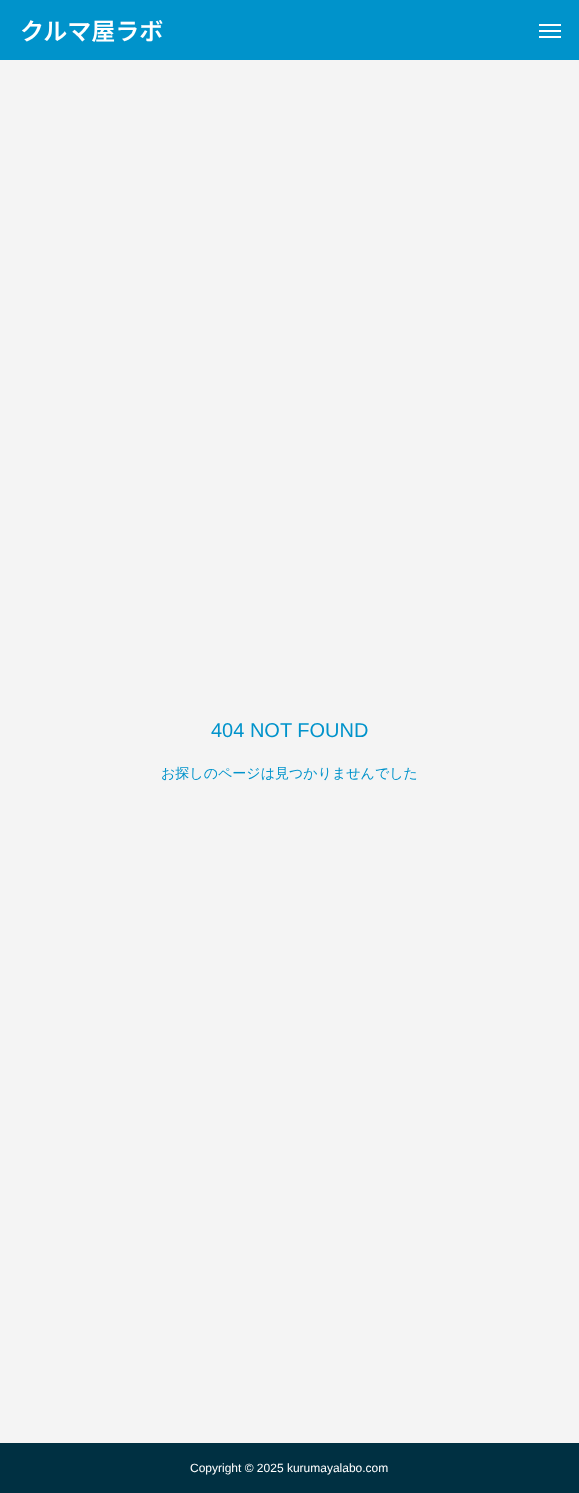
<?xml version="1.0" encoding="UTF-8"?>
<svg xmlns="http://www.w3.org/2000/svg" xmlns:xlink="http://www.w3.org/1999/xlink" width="579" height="1493">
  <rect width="100%" height="100%" fill="#003042" />
  <rect width="579" height="60" fill="#0093cb" />
  <rect x="539" y="24" width="22" height="2" fill="#ffffff" />
  <rect x="539" y="30" width="22" height="2" fill="#ffffff" />
  <rect x="539" y="36" width="22" height="2" fill="#ffffff" />
  <rect y="60" width="579" height="1383" fill="#f4f4f4" />
  <text x="20" y="40" style="font-family: Noto Sans JP; font-size: 24px; font-weight: 600; fill: #ffffff">クルマ屋ラボ</text>
  <text x="211" y="737" style="font-family: Liberation Sans; font-size: 20px; fill: #0093cb">404 NOT FOUND</text>
  <text x="161" y="778" style="font-family: WenQuanYi Zen Hei; font-size: 14px; font-weight: 500; fill: #0093cb">お探しのページは見つかりませんでした</text>
  <text x="190" y="1472" style="font-family: Liberation Sans; font-size: 12px; fill: #ffffff">Copyright © 2025 kurumayalabo.com</text>
</svg>
